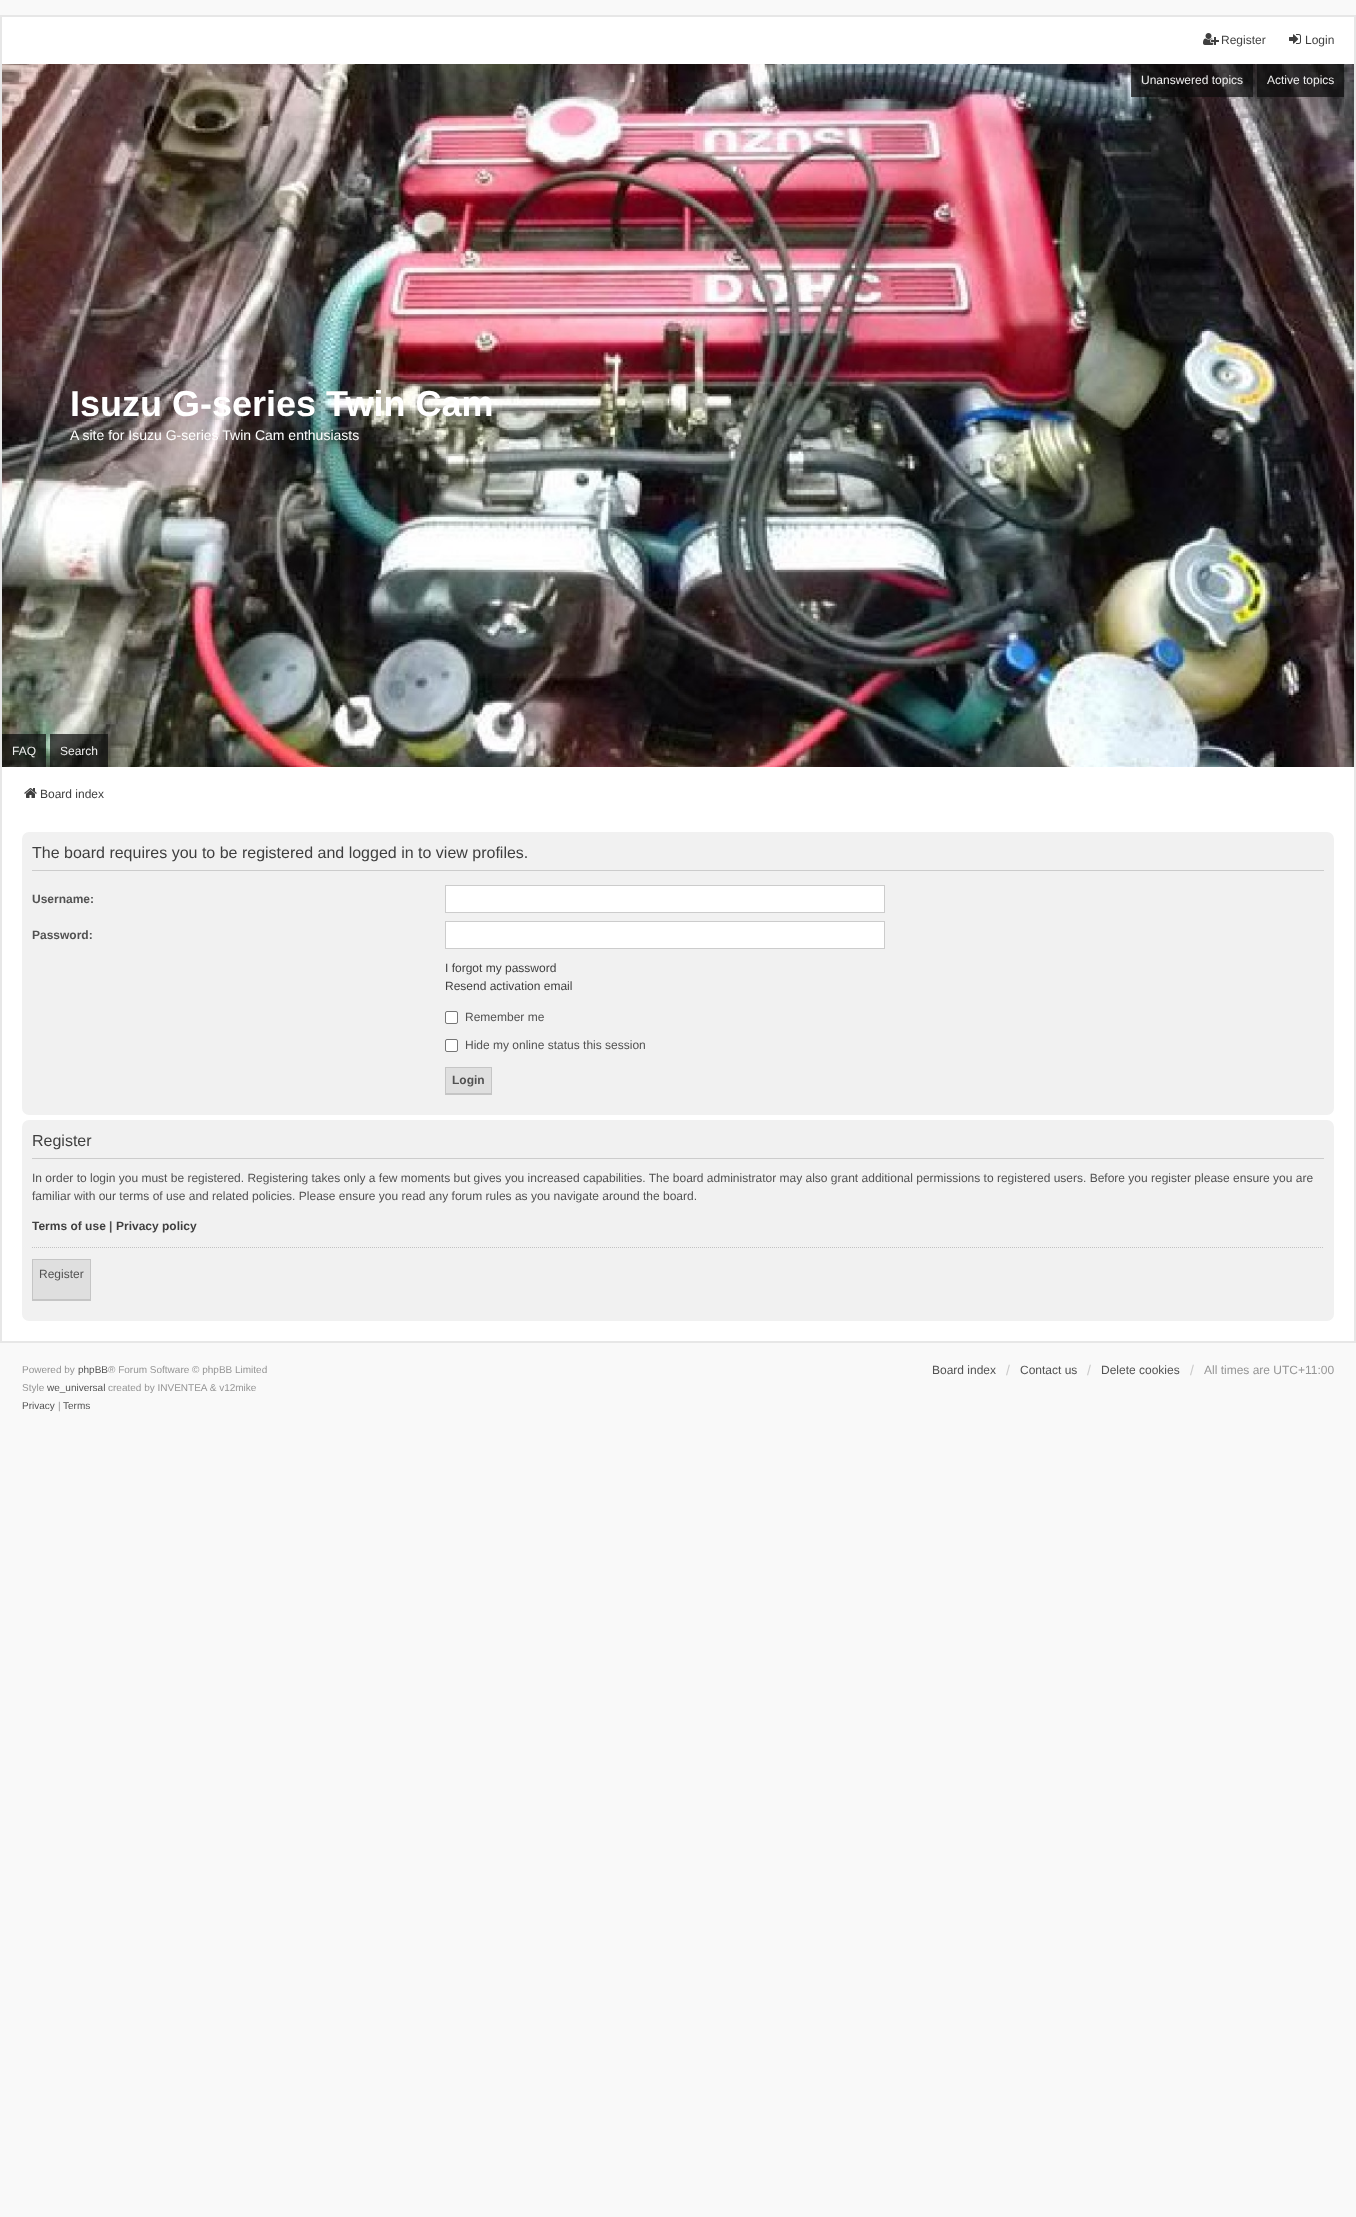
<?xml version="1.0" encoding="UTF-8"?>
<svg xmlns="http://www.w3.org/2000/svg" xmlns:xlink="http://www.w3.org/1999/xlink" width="1356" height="2217">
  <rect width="100%" height="100%" fill="#f9f9f9" />
  <rect x="2" y="17" width="1352" height="47" fill="#ffffff" />
  <rect y="15" width="1356" height="2" fill="#e7e7e7" />
  <rect x="1354" y="15" width="2" height="1328" fill="#e7e7e7" />
  <rect y="15" width="2" height="752" fill="#e7e7e7" />
  <image x="1203" y="33" width="16" height="12" xlink:href="image1.png" />
  <image x="1289" y="34" width="12" height="10" xlink:href="image2.png" />
  <image x="2" y="64" width="1352" height="703" xlink:href="image3.png" />
  <rect x="1131" y="64" width="122" height="33" fill="#0a0a0a" fill-opacity="0.7" />
  <rect x="1257" y="64" width="87" height="33" fill="#0a0a0a" fill-opacity="0.7" />
  <rect x="2" y="734" width="44" height="33" fill="#0a0a0a" fill-opacity="0.7" />
  <rect x="50" y="734" width="58" height="33" fill="#0a0a0a" fill-opacity="0.7" />
  <rect x="2" y="767" width="1352" height="574" fill="#ffffff" />
  <rect y="1341" width="1356" height="2" fill="#e7e7e7" />
  <rect y="767" width="2" height="576" fill="#e7e7e7" />
  <image x="24" y="788" width="13" height="10" xlink:href="image4.png" />
  <rect x="22" y="832" width="1312" height="283" rx="7" fill="#f1f1f1" />
  <rect x="32" y="870" width="1292" height="1" fill="#cccccc" />
  <rect x="445.5" y="885.5" width="439" height="27" fill="#ffffff" stroke="#cccccc" />
  <rect x="445.5" y="921.5" width="439" height="27" fill="#ffffff" stroke="#cccccc" />
  <rect x="445.5" y="1011.5" width="12" height="12" rx="1.5" fill="#ffffff" stroke="#767676" />
  <rect x="445.5" y="1039.5" width="12" height="12" rx="1.5" fill="#ffffff" stroke="#767676" />
  <rect x="446" y="1068" width="45" height="25" fill="#dfdfdf" />
  <rect x="445" y="1067" width="47" height="1" fill="#c5c5c5" />
  <rect x="491" y="1067" width="1" height="28" fill="#c5c5c5" />
  <rect x="445" y="1093" width="47" height="2" fill="#c5c5c5" />
  <rect x="445" y="1067" width="1" height="28" fill="#c5c5c5" />
  <rect x="22" y="1120" width="1312" height="201" rx="7" fill="#f1f1f1" />
  <rect x="32" y="1158" width="1292" height="1" fill="#cccccc" />
  <path d="M 32 1247.5 h 1292" fill="none" stroke="#c2c2c2" stroke-dasharray="1 1" />
  <rect x="33" y="1260" width="57" height="39" fill="#dfdfdf" />
  <rect x="32" y="1259" width="59" height="1" fill="#c5c5c5" />
  <rect x="90" y="1259" width="1" height="42" fill="#c5c5c5" />
  <rect x="32" y="1299" width="59" height="2" fill="#c5c5c5" />
  <rect x="32" y="1259" width="1" height="42" fill="#c5c5c5" />
  <text x="1221" y="44" style="font-family: Liberation Sans; font-size: 12px; fill: #3f3f3f">Register</text>
  <text x="1305" y="44" style="font-family: Liberation Sans; font-size: 12px; fill: #3f3f3f">Login</text>
  <text x="1141" y="84" style="font-family: Liberation Sans; font-size: 12px; fill: #eeeeee">Unanswered topics</text>
  <text x="1267" y="84" style="font-family: Liberation Sans; font-size: 12px; fill: #eeeeee">Active topics</text>
  <text x="70" y="416" style="font-family: Liberation Sans; font-size: 36px; font-weight: bold; fill: #ffffff">Isuzu G-series Twin Cam</text>
  <text x="70" y="440" style="font-family: Liberation Sans; font-size: 14px; fill: #ffffff">A site for Isuzu G-series Twin Cam enthusiasts</text>
  <text x="12" y="755" style="font-family: Liberation Sans; font-size: 12px; fill: #eeeeee">FAQ</text>
  <text x="60" y="755" style="font-family: Liberation Sans; font-size: 12px; fill: #eeeeee">Search</text>
  <text x="40" y="798" style="font-family: Liberation Sans; font-size: 12px; fill: #3f3f3f">Board index</text>
  <text x="32" y="858" style="font-family: Liberation Sans; font-size: 16px; fill: #3f3f3f">The board requires you to be registered and logged in to view profiles.</text>
  <text x="32" y="903" style="font-family: Liberation Sans; font-size: 12px; font-weight: bold; fill: #525252">Username:</text>
  <text x="32" y="939" style="font-family: Liberation Sans; font-size: 12px; font-weight: bold; fill: #525252">Password:</text>
  <text x="445" y="972" style="font-family: Liberation Sans; font-size: 12px; fill: #3f3f3f">I forgot my password</text>
  <text x="445" y="990" style="font-family: Liberation Sans; font-size: 12px; fill: #3f3f3f">Resend activation email</text>
  <text x="465" y="1021" style="font-family: Liberation Sans; font-size: 12px; fill: #525252">Remember me</text>
  <text x="465" y="1049" style="font-family: Liberation Sans; font-size: 12px; fill: #525252">Hide my online status this session</text>
  <text x="452" y="1084" style="font-family: Liberation Sans; font-size: 12px; font-weight: bold; fill: #525252">Login</text>
  <text x="32" y="1146" style="font-family: Liberation Sans; font-size: 16px; fill: #3f3f3f">Register</text>
  <text x="32" y="1182" style="font-family: Liberation Sans; font-size: 12px; fill: #525252">In order to login you must be registered. Registering takes only a few moments but gives you increased capabilities. The board administrator may also grant additional permissions to registered users. Before you register please ensure you are</text>
  <text x="32" y="1200" style="font-family: Liberation Sans; font-size: 12px; fill: #525252">familiar with our terms of use and related policies. Please ensure you read any forum rules as you navigate around the board.</text>
  <text x="32" y="1230" style="font-family: Liberation Sans; font-size: 12px; font-weight: bold; fill: #3f3f3f">Terms of use</text>
  <text x="109" y="1230" style="font-family: Liberation Sans; font-size: 12px; font-weight: bold; fill: #525252">|</text>
  <text x="116" y="1230" style="font-family: Liberation Sans; font-size: 12px; font-weight: bold; fill: #3f3f3f">Privacy policy</text>
  <text x="39" y="1278" style="font-family: Liberation Sans; font-size: 12px; fill: #525252">Register</text>
  <text x="22" y="1373" style="font-family: Liberation Sans; font-size: 10px; fill: #959595">Powered by</text>
  <text x="78" y="1373" style="font-family: Liberation Sans; font-size: 10px; fill: #525252">phpBB</text>
  <text x="108" y="1373" style="font-family: Liberation Sans; font-size: 10px; fill: #959595">® Forum Software © phpBB Limited</text>
  <text x="22" y="1391" style="font-family: Liberation Sans; font-size: 10px; fill: #959595">Style</text>
  <text x="47" y="1391" style="font-family: Liberation Sans; font-size: 10px; fill: #525252">we_universal</text>
  <text x="108" y="1391" style="font-family: Liberation Sans; font-size: 10px; fill: #959595">created by INVENTEA &amp; v12mike</text>
  <text x="22" y="1409" style="font-family: Liberation Sans; font-size: 10px; fill: #525252">Privacy</text>
  <text x="58" y="1409" style="font-family: Liberation Sans; font-size: 10px; fill: #959595">|</text>
  <text x="63" y="1409" style="font-family: Liberation Sans; font-size: 10px; fill: #525252">Terms</text>
  <text x="932" y="1374" style="font-family: Liberation Sans; font-size: 12px; fill: #525252">Board index</text>
  <text x="1006" y="1375" style="font-family: Liberation Sans; font-size: 14px; fill: #cacaca">/</text>
  <text x="1020" y="1374" style="font-family: Liberation Sans; font-size: 12px; fill: #525252">Contact us</text>
  <text x="1087" y="1375" style="font-family: Liberation Sans; font-size: 14px; fill: #cacaca">/</text>
  <text x="1101" y="1374" style="font-family: Liberation Sans; font-size: 12px; fill: #525252">Delete cookies</text>
  <text x="1190" y="1375" style="font-family: Liberation Sans; font-size: 14px; fill: #cacaca">/</text>
  <text x="1204" y="1374" style="font-family: Liberation Sans; font-size: 12px; fill: #959595">All times are UTC+11:00</text>
</svg>
